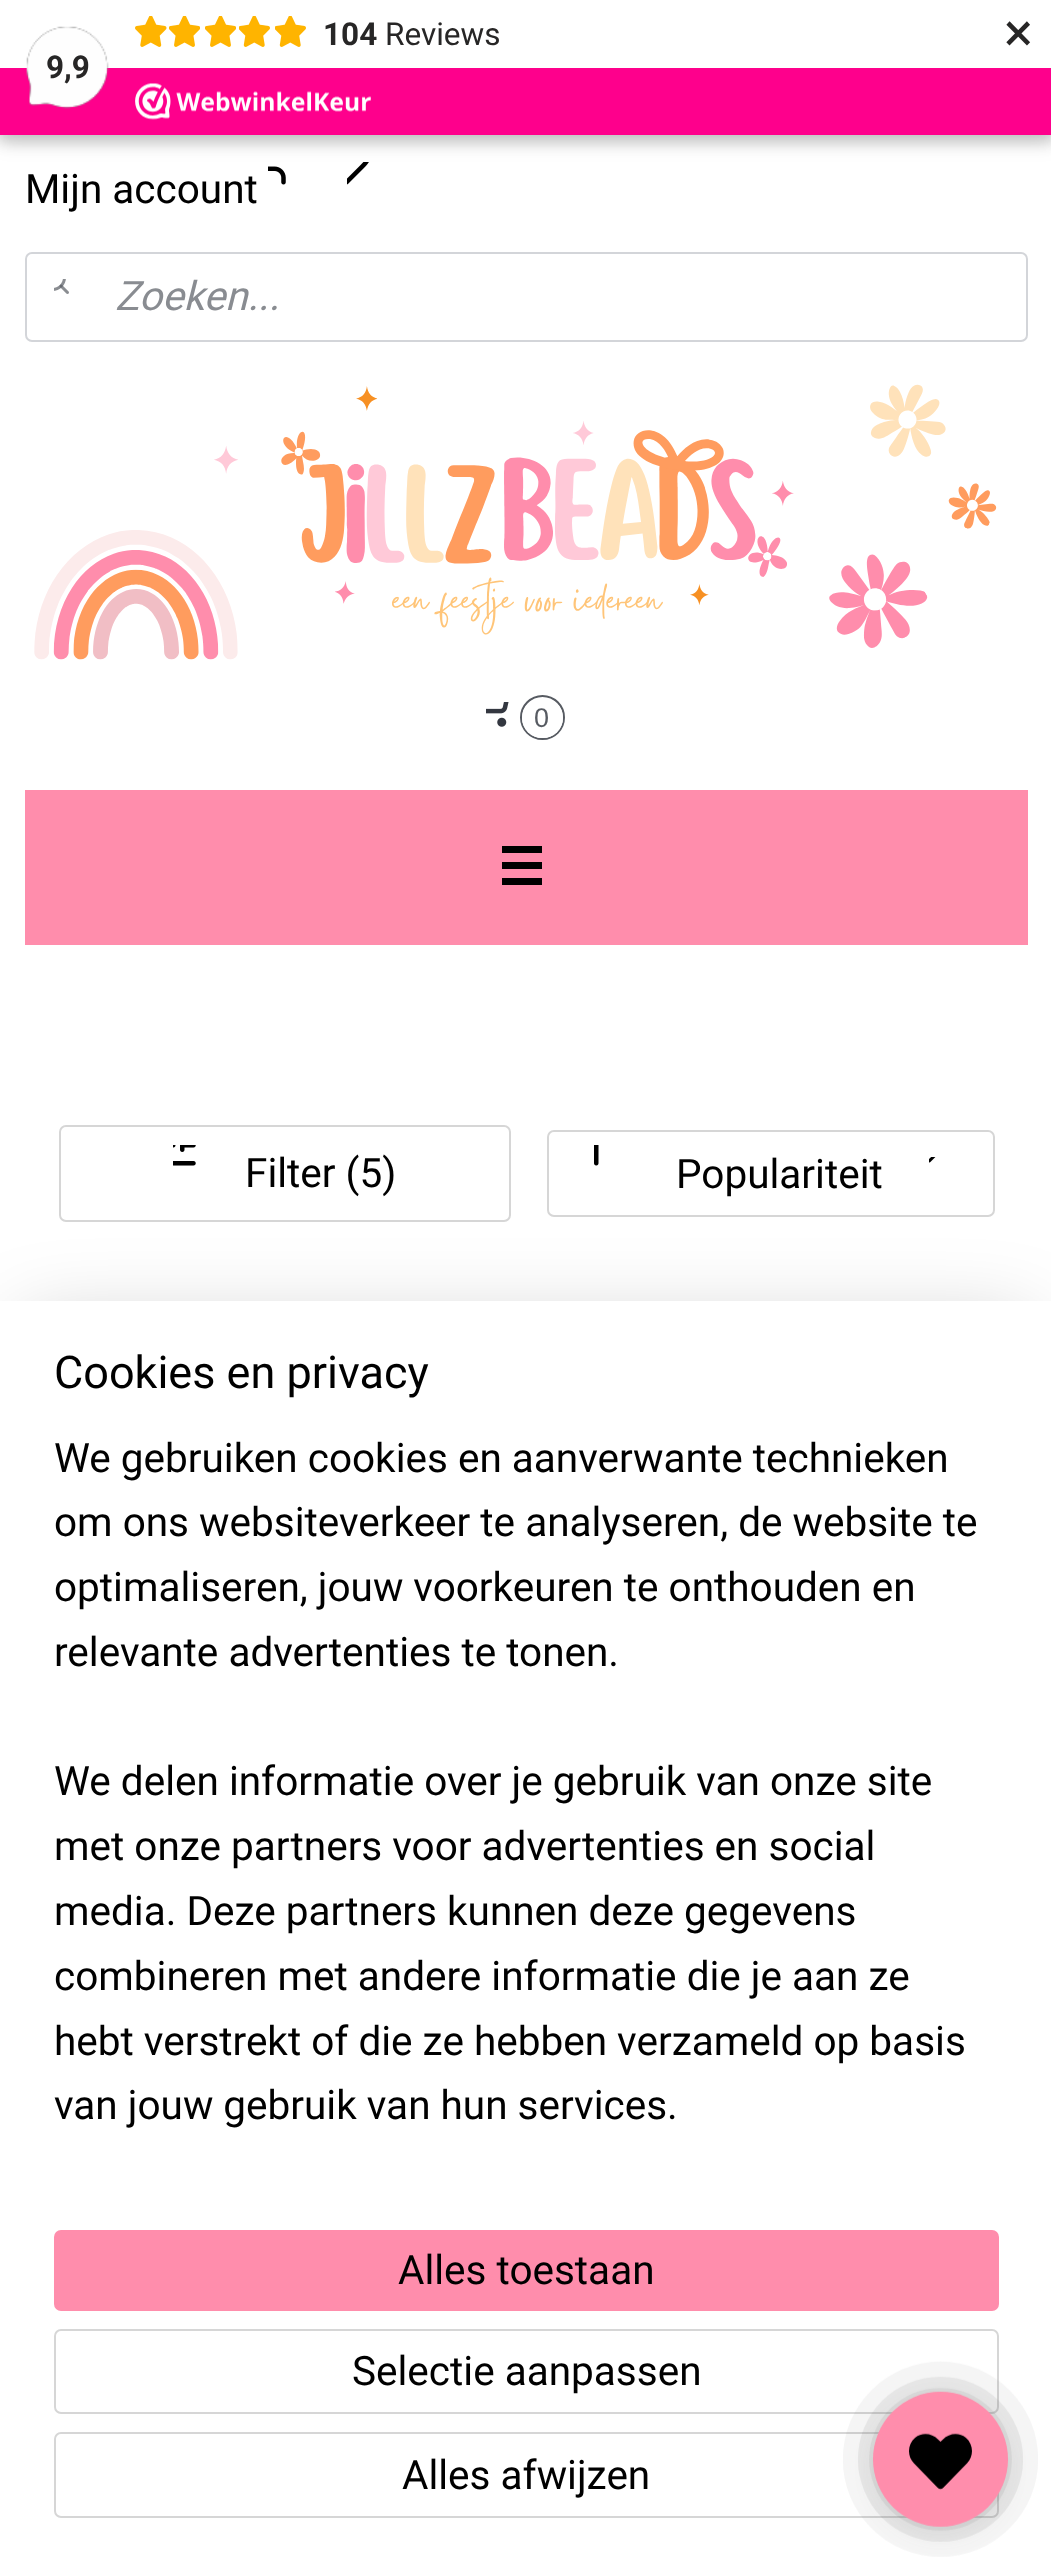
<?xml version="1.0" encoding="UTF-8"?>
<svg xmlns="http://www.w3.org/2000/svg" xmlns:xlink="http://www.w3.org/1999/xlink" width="1051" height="2571">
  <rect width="100%" height="100%" fill="#ffffff" />
  <image x="347" y="162" width="22" height="23" xlink:href="image7.png" />
  <rect x="-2" y="-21" width="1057" height="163" fill="#000000" fill-opacity="0.15" filter="blur(7px)" />
  <image x="268" y="166" width="18" height="19" xlink:href="image6.png" />
  <rect y="5" width="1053" height="135" fill="#000000" fill-opacity="0.15" filter="blur(11px)" />
  <rect width="1051" height="68" fill="#ffffff" />
  <image x="135" y="16" width="32" height="31" xlink:href="image1.png" />
  <image x="169" y="16" width="31" height="31" xlink:href="image2.png" />
  <image x="205" y="16" width="31" height="31" xlink:href="image2.png" />
  <image x="239" y="16" width="31" height="31" xlink:href="image3.png" />
  <image x="275" y="16" width="31" height="31" xlink:href="image3.png" />
  <rect y="68" width="1051" height="67" fill="#fe008c" />
  <image x="26" y="26" width="83" height="83" xlink:href="image4.png" />
  <image x="135" y="83" width="236" height="37" xlink:href="image5.png" />
  <rect x="26" y="253" width="1001" height="88" rx="6" fill="none" stroke="#d3d5d9" stroke-width="2" />
  <image x="54" y="279" width="15" height="15" xlink:href="image8.png" />
  <image x="34" y="384" width="963" height="276" xlink:href="image9.png" />
  <image x="486" y="702" width="23" height="25" xlink:href="image10.png" />
  <circle cx="542.5" cy="717.5" r="21.5" fill="none" stroke="#575b62" stroke-width="2" />
  <rect x="522" y="698" width="41" height="40" rx="20" fill="#ffffff" />
  <rect x="25" y="790" width="1003" height="155" fill="#ff8dac" />
  <rect x="502" y="862" width="40" height="7" fill="#000000" />
  <rect x="502" y="846" width="40" height="7" fill="#000000" />
  <rect x="502" y="878" width="40" height="7" fill="#000000" />
  <rect x="60" y="1126" width="450" height="95" rx="6" fill="none" stroke="#d6d6d6" stroke-width="2" />
  <image x="173" y="1145" width="23" height="21" xlink:href="image11.png" />
  <rect x="548" y="1131" width="446" height="85" rx="6" fill="none" stroke="#d6d6d6" stroke-width="2" />
  <image x="594" y="1145" width="5" height="21" xlink:href="image12.png" />
  <image x="929" y="1157" width="7" height="6" xlink:href="image13.png" />
  <rect x="23" y="1323" width="1008" height="1226" fill="#000000" fill-opacity="0.2" filter="blur(40.5px)" />
  <rect y="1301" width="1051" height="1270" fill="#ffffff" />
  <rect x="54" y="2230" width="945" height="81" rx="7" fill="#ff8dac" />
  <rect x="55" y="2330" width="943" height="83" rx="6" fill="none" stroke="#d6d6d6" stroke-width="2" />
  <rect x="55" y="2433" width="943" height="84" rx="6" fill="none" stroke="#d6d6d6" stroke-width="2" />
  <image x="843" y="2361" width="195" height="196" xlink:href="image14.png" />
  <text x="323" y="45" style="font-family: Roboto; font-size: 31.5px; font-weight: bold; fill: #272626">104</text>
  <text x="385" y="45" style="font-family: Roboto; font-size: 31.5px; fill: #272626">Reviews</text>
  <text x="1004" y="51" style="font-family: Roboto; font-size: 54px; fill: #272626">×</text>
  <text x="46" y="78" style="font-family: Roboto; font-size: 31.5px; font-weight: bold; fill: #272626">9,9</text>
  <text x="25" y="203" style="font-family: Roboto; font-size: 40.5px; fill: #000000">Mijn account</text>
  <text x="115" y="310" style="font-family: Roboto; font-size: 40.5px; font-style: italic; fill: #898c91">Zoeken...</text>
  <text x="534" y="727" style="font-family: Liberation Sans; font-size: 27px; fill: #575b62">0</text>
  <text x="245" y="1187" style="font-family: Roboto; font-size: 40.5px; fill: #000000">Filter (5)</text>
  <text x="676" y="1188" style="font-family: Roboto; font-size: 40.5px; fill: #000000">Populariteit</text>
  <text x="54" y="1388" style="font-family: Roboto; font-size: 45px; fill: #000000">Cookies en privacy</text>
  <text x="54" y="1472" style="font-family: Roboto; font-size: 40.5px; fill: #000000">We gebruiken cookies en aanverwante technieken</text>
  <text x="54" y="1536" style="font-family: Roboto; font-size: 40.5px; fill: #000000">om ons websiteverkeer te analyseren, de website te</text>
  <text x="54" y="1601" style="font-family: Roboto; font-size: 40.5px; fill: #000000">optimaliseren, jouw voorkeuren te onthouden en</text>
  <text x="54" y="1666" style="font-family: Roboto; font-size: 40.5px; fill: #000000">relevante advertenties te tonen.</text>
  <text x="54" y="1795" style="font-family: Roboto; font-size: 40.5px; fill: #000000">We delen informatie over je gebruik van onze site</text>
  <text x="54" y="1860" style="font-family: Roboto; font-size: 40.5px; fill: #000000">met onze partners voor advertenties en social</text>
  <text x="54" y="1925" style="font-family: Roboto; font-size: 40.5px; fill: #000000">media. Deze partners kunnen deze gegevens</text>
  <text x="54" y="1990" style="font-family: Roboto; font-size: 40.5px; fill: #000000">combineren met andere informatie die je aan ze</text>
  <text x="54" y="2055" style="font-family: Roboto; font-size: 40.5px; fill: #000000">hebt verstrekt of die ze hebben verzameld op basis</text>
  <text x="54" y="2119" style="font-family: Roboto; font-size: 40.5px; fill: #000000">van jouw gebruik van hun services.</text>
  <text x="398" y="2284" style="font-family: Roboto; font-size: 40.5px; fill: #000000">Alles toestaan</text>
  <text x="352" y="2385" style="font-family: Roboto; font-size: 40.5px; fill: #000000">Selectie aanpassen</text>
  <text x="402" y="2489" style="font-family: Roboto; font-size: 40.5px; fill: #000000">Alles afwijzen</text>
</svg>
